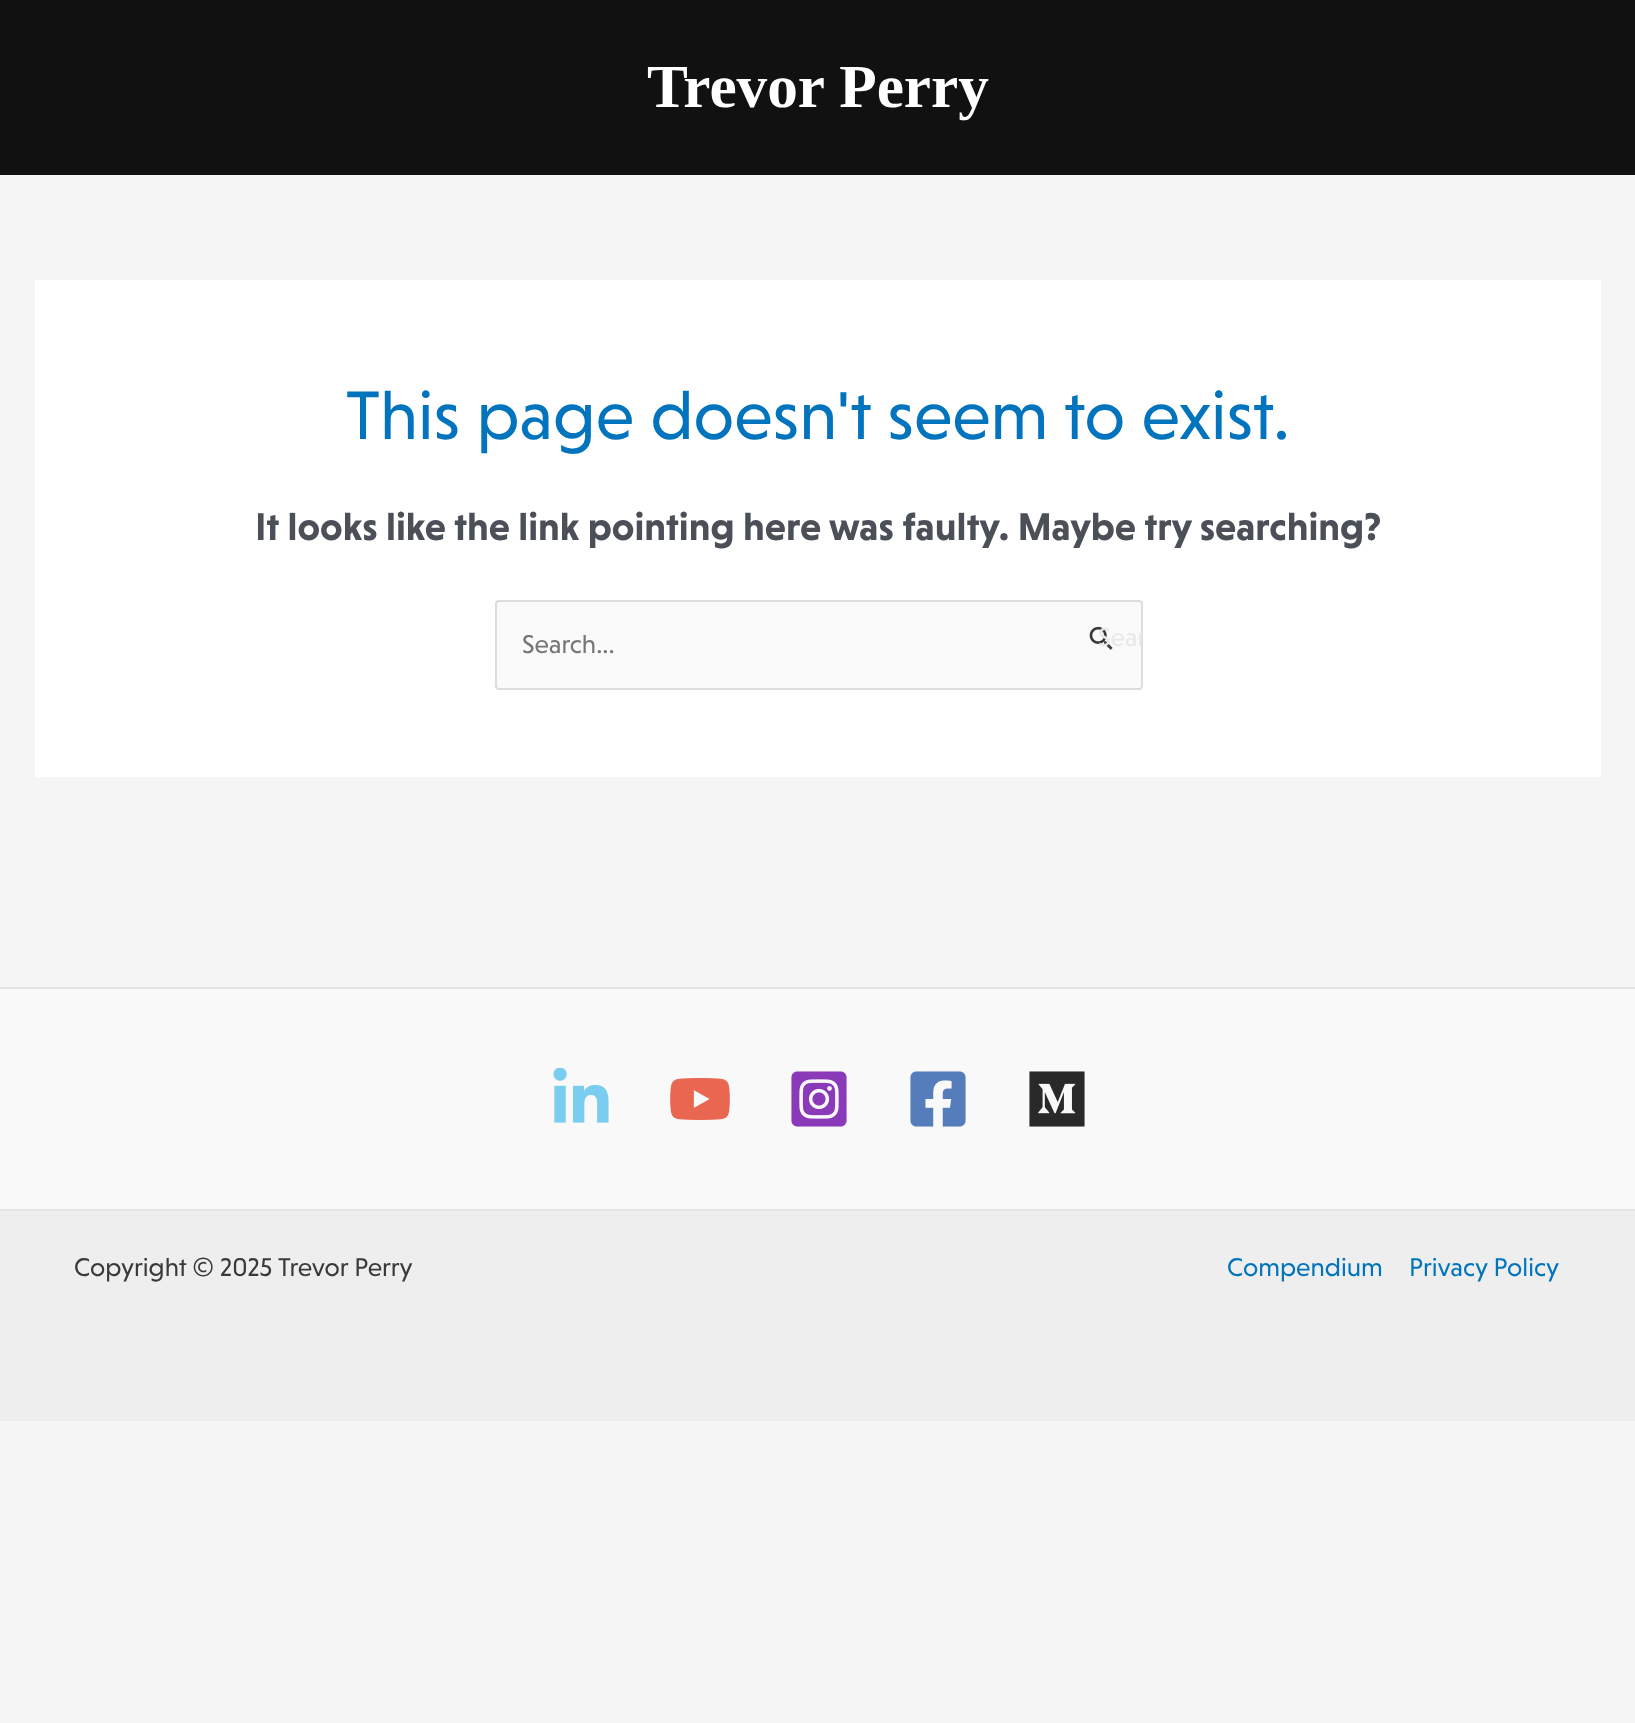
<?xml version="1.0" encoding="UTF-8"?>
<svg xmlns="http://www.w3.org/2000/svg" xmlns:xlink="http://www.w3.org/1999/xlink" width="1635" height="1723">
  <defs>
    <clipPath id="clip1"><rect x="1064" y="600" width="79" height="72" rx="4" /></clipPath>
  </defs>
  <rect width="100%" height="100%" fill="#f5f5f5" />
  <rect width="1635" height="175" fill="#111111" />
  <rect x="35" y="280" width="1566" height="497" fill="#ffffff" />
  <rect x="496" y="601" width="646" height="88" rx="3" fill="#fafafa" stroke="#dddddd" stroke-width="2" />
  <image x="1089" y="626" width="24" height="24" xlink:href="image1.png" />
  <rect y="989" width="1635" height="220" fill="#f9f9f9" />
  <rect y="987" width="1635" height="2" fill="#e5e5e5" />
  <image x="553" y="1068" width="56" height="55" xlink:href="image2.png" />
  <image x="670" y="1078" width="60" height="42" xlink:href="image3.png" />
  <image x="791" y="1071" width="56" height="56" xlink:href="image4.png" />
  <image x="910" y="1071" width="56" height="56" xlink:href="image5.png" />
  <image x="1029" y="1071" width="56" height="56" xlink:href="image6.png" />
  <rect y="1211" width="1635" height="210" fill="#eeeeee" />
  <rect y="1209" width="1635" height="2" fill="#e5e5e5" />
  <text x="647" y="107" style="font-family: Liberation Serif; font-size: 61.25px; font-weight: bold; fill: #ffffff">Trevor Perry</text>
  <text x="346" y="439" style="font-family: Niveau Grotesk; font-size: 70px; fill: #0274be">This page doesn't seem to exist.</text>
  <text x="255" y="540" style="font-family: Niveau Grotesk; font-size: 39.4px; font-weight: bold; fill: #4b4f58">It looks like the link pointing here was faulty. Maybe try searching?</text>
  <text x="522" y="653" style="font-family: Niveau Grotesk; font-size: 26.25px; fill: #757575">Search...</text>
  <g clip-path="url(#clip1)">
    <text x="1098" y="646" style="font-family: Niveau Grotesk; font-size: 26.25px; fill: #e8e8e8">Sear</text>
  </g>
  <text x="74" y="1276" style="font-family: Niveau Grotesk; font-size: 26.25px; fill: #3a3a3a">Copyright © 2025 Trevor Perry</text>
  <text x="1227" y="1276" style="font-family: Niveau Grotesk; font-size: 26.25px; fill: #0274be">Compendium</text>
  <text x="1409" y="1276" style="font-family: Niveau Grotesk; font-size: 26.25px; fill: #0274be">Privacy Policy</text>
</svg>
